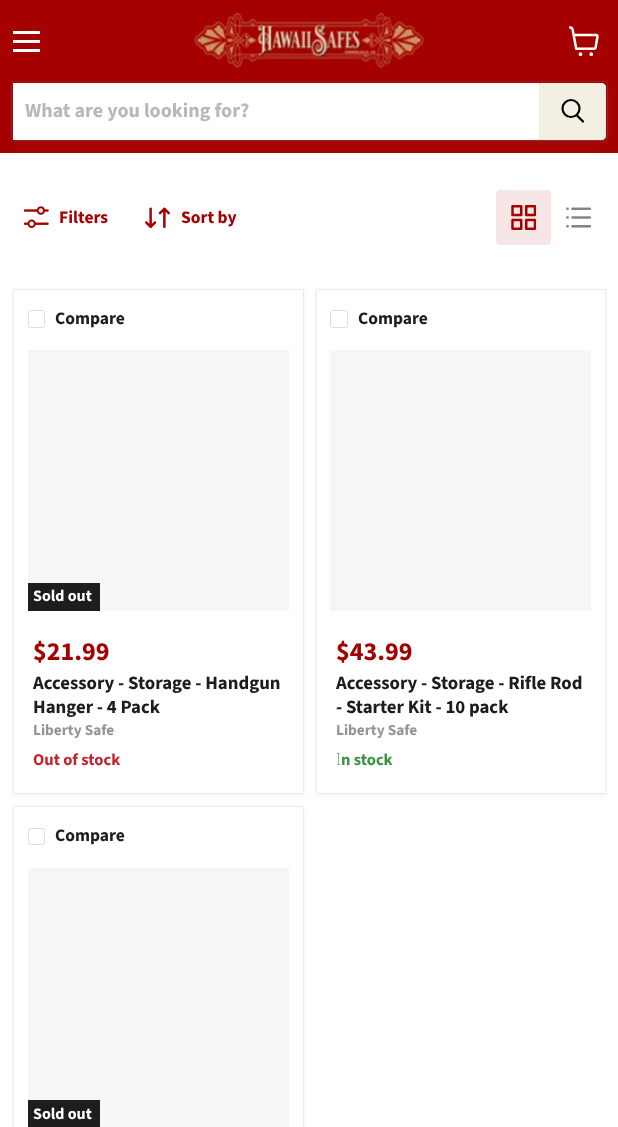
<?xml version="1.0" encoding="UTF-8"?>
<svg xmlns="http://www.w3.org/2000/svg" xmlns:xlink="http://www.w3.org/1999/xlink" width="618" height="1127">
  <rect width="100%" height="100%" fill="#ffffff" />
  <rect width="618" height="153" fill="#a60101" />
  <rect x="13" y="31" width="27" height="3" fill="#ffffff" />
  <rect x="13" y="40" width="27" height="3" fill="#ffffff" />
  <rect x="13" y="49" width="27" height="3" fill="#ffffff" />
  <image x="569" y="26" width="30" height="30" xlink:href="image1.png" />
  <image x="194" y="13" width="230" height="55" xlink:href="image2.png" />
  <rect x="11" y="84" width="597" height="60" rx="5" fill="#808080" fill-opacity="0.11" filter="blur(2px)" />
  <rect x="11.5" y="81.5" width="596" height="59" rx="4.5" fill="none" stroke="#808080" stroke-opacity="0.2" />
  <rect x="13" y="83" width="526" height="57" fill="#ffffff" />
  <path d="M 539.5 83.5 h 62.5 c 2 0 3.5 1.5 3.5 3.5 v 49 c 0 2 -1.5 3.5 -3.5 3.5 h -62.5 z" fill="#f4efe3" stroke="#f4efe3" />
  <path d="M 583 121.5 l -6 -6" fill="none" stroke="#000000" stroke-width="2.2" stroke-linecap="round" />
  <circle cx="571" cy="108.5" r="8.5" fill="none" stroke="#000000" stroke-width="2.2" />
  <image x="24" y="206" width="25" height="22" xlink:href="image3.png" />
  <image x="145" y="207" width="25" height="22" xlink:href="image4.png" />
  <rect x="496" y="190" width="55" height="55" rx="4" fill="#f6e6e6" />
  <image x="511" y="205" width="25" height="25" xlink:href="image5.png" />
  <image x="566" y="207" width="25" height="21" xlink:href="image6.png" />
  <rect x="13" y="290" width="291" height="505" fill="#808080" fill-opacity="0.11" filter="blur(2.5px)" />
  <rect x="13.5" y="289.5" width="290" height="504" fill="#ffffff" stroke="#ebebeb" />
  <rect x="28.5" y="310.5" width="16" height="17" rx="2" fill="none" stroke="#dddddd" />
  <rect x="28" y="350" width="261" height="261" fill="#f6f6f6" />
  <rect x="28" y="583" width="72" height="28" fill="#1d1d1d" />
  <rect x="316" y="290" width="290" height="505" fill="#808080" fill-opacity="0.11" filter="blur(2.5px)" />
  <rect x="316.5" y="289.5" width="289" height="504" fill="#ffffff" stroke="#ebebeb" />
  <rect x="330.5" y="310.5" width="17" height="17" rx="2" fill="none" stroke="#dddddd" />
  <rect x="330" y="350" width="261" height="261" fill="#f6f6f6" />
  <rect x="13" y="808" width="291" height="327" fill="#808080" fill-opacity="0.11" filter="blur(2.5px)" />
  <rect x="13.5" y="806.5" width="290" height="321" fill="#ffffff" stroke="#ebebeb" />
  <rect x="28.5" y="828.5" width="16" height="16" rx="2" fill="none" stroke="#dddddd" />
  <rect x="28" y="868" width="261" height="259" fill="#f6f6f6" />
  <rect x="28" y="1100" width="72" height="27" fill="#1d1d1d" />
  <text x="25" y="117" style="font-family: Source Sans Pro; font-size: 20px; font-weight: bold; fill: #b8b8b8">What are you looking for?</text>
  <text x="59" y="223" style="font-family: Source Sans Pro; font-size: 17.5px; font-weight: bold; fill: #a60101">Filters</text>
  <text x="181" y="223" style="font-family: Source Sans Pro; font-size: 17.5px; font-weight: bold; fill: #a60101">Sort by</text>
  <text x="55" y="324" style="font-family: Source Sans Pro; font-size: 17.5px; font-weight: bold; fill: #1d1d1d">Compare</text>
  <text x="33" y="601" style="font-family: Source Sans Pro; font-size: 16px; font-weight: bold; fill: #ffffff">Sold out</text>
  <text x="33" y="660" style="font-family: Source Sans Pro; font-size: 26px; font-weight: bold; fill: #a60101">$21.99</text>
  <text x="33" y="689" style="font-family: Source Sans Pro; font-size: 18.75px; font-weight: bold; fill: #1d1d1d">Accessory - Storage - Handgun</text>
  <text x="33" y="713" style="font-family: Source Sans Pro; font-size: 18.75px; font-weight: bold; fill: #1d1d1d">Hanger - 4 Pack</text>
  <text x="33" y="735" style="font-family: Source Sans Pro; font-size: 15.25px; font-weight: bold; fill: #949494">Liberty Safe</text>
  <text x="33" y="765" style="font-family: Source Sans Pro; font-size: 16.5px; font-weight: bold; fill: #bf262f">Out of stock</text>
  <text x="358" y="324" style="font-family: Source Sans Pro; font-size: 17.5px; font-weight: bold; fill: #1d1d1d">Compare</text>
  <text x="336" y="660" style="font-family: Source Sans Pro; font-size: 26px; font-weight: bold; fill: #a60101">$43.99</text>
  <text x="336" y="689" style="font-family: Source Sans Pro; font-size: 18.75px; font-weight: bold; fill: #1d1d1d">Accessory - Storage - Rifle Rod</text>
  <text x="336" y="713" style="font-family: Source Sans Pro; font-size: 18.75px; font-weight: bold; fill: #1d1d1d">- Starter Kit - 10 pack</text>
  <text x="336" y="735" style="font-family: Source Sans Pro; font-size: 15.25px; font-weight: bold; fill: #949494">Liberty Safe</text>
  <text x="336" y="765" style="font-family: Noto Sans; font-size: 16.5px; font-weight: 200; fill: #3c9342">I</text>
  <text x="341" y="765" style="font-family: Source Sans Pro; font-size: 16.5px; font-weight: bold; fill: #3c9342">n stock</text>
  <text x="55" y="841" style="font-family: Source Sans Pro; font-size: 17.5px; font-weight: bold; fill: #1d1d1d">Compare</text>
  <text x="33" y="1119" style="font-family: Source Sans Pro; font-size: 16px; font-weight: bold; fill: #ffffff">Sold out</text>
</svg>
